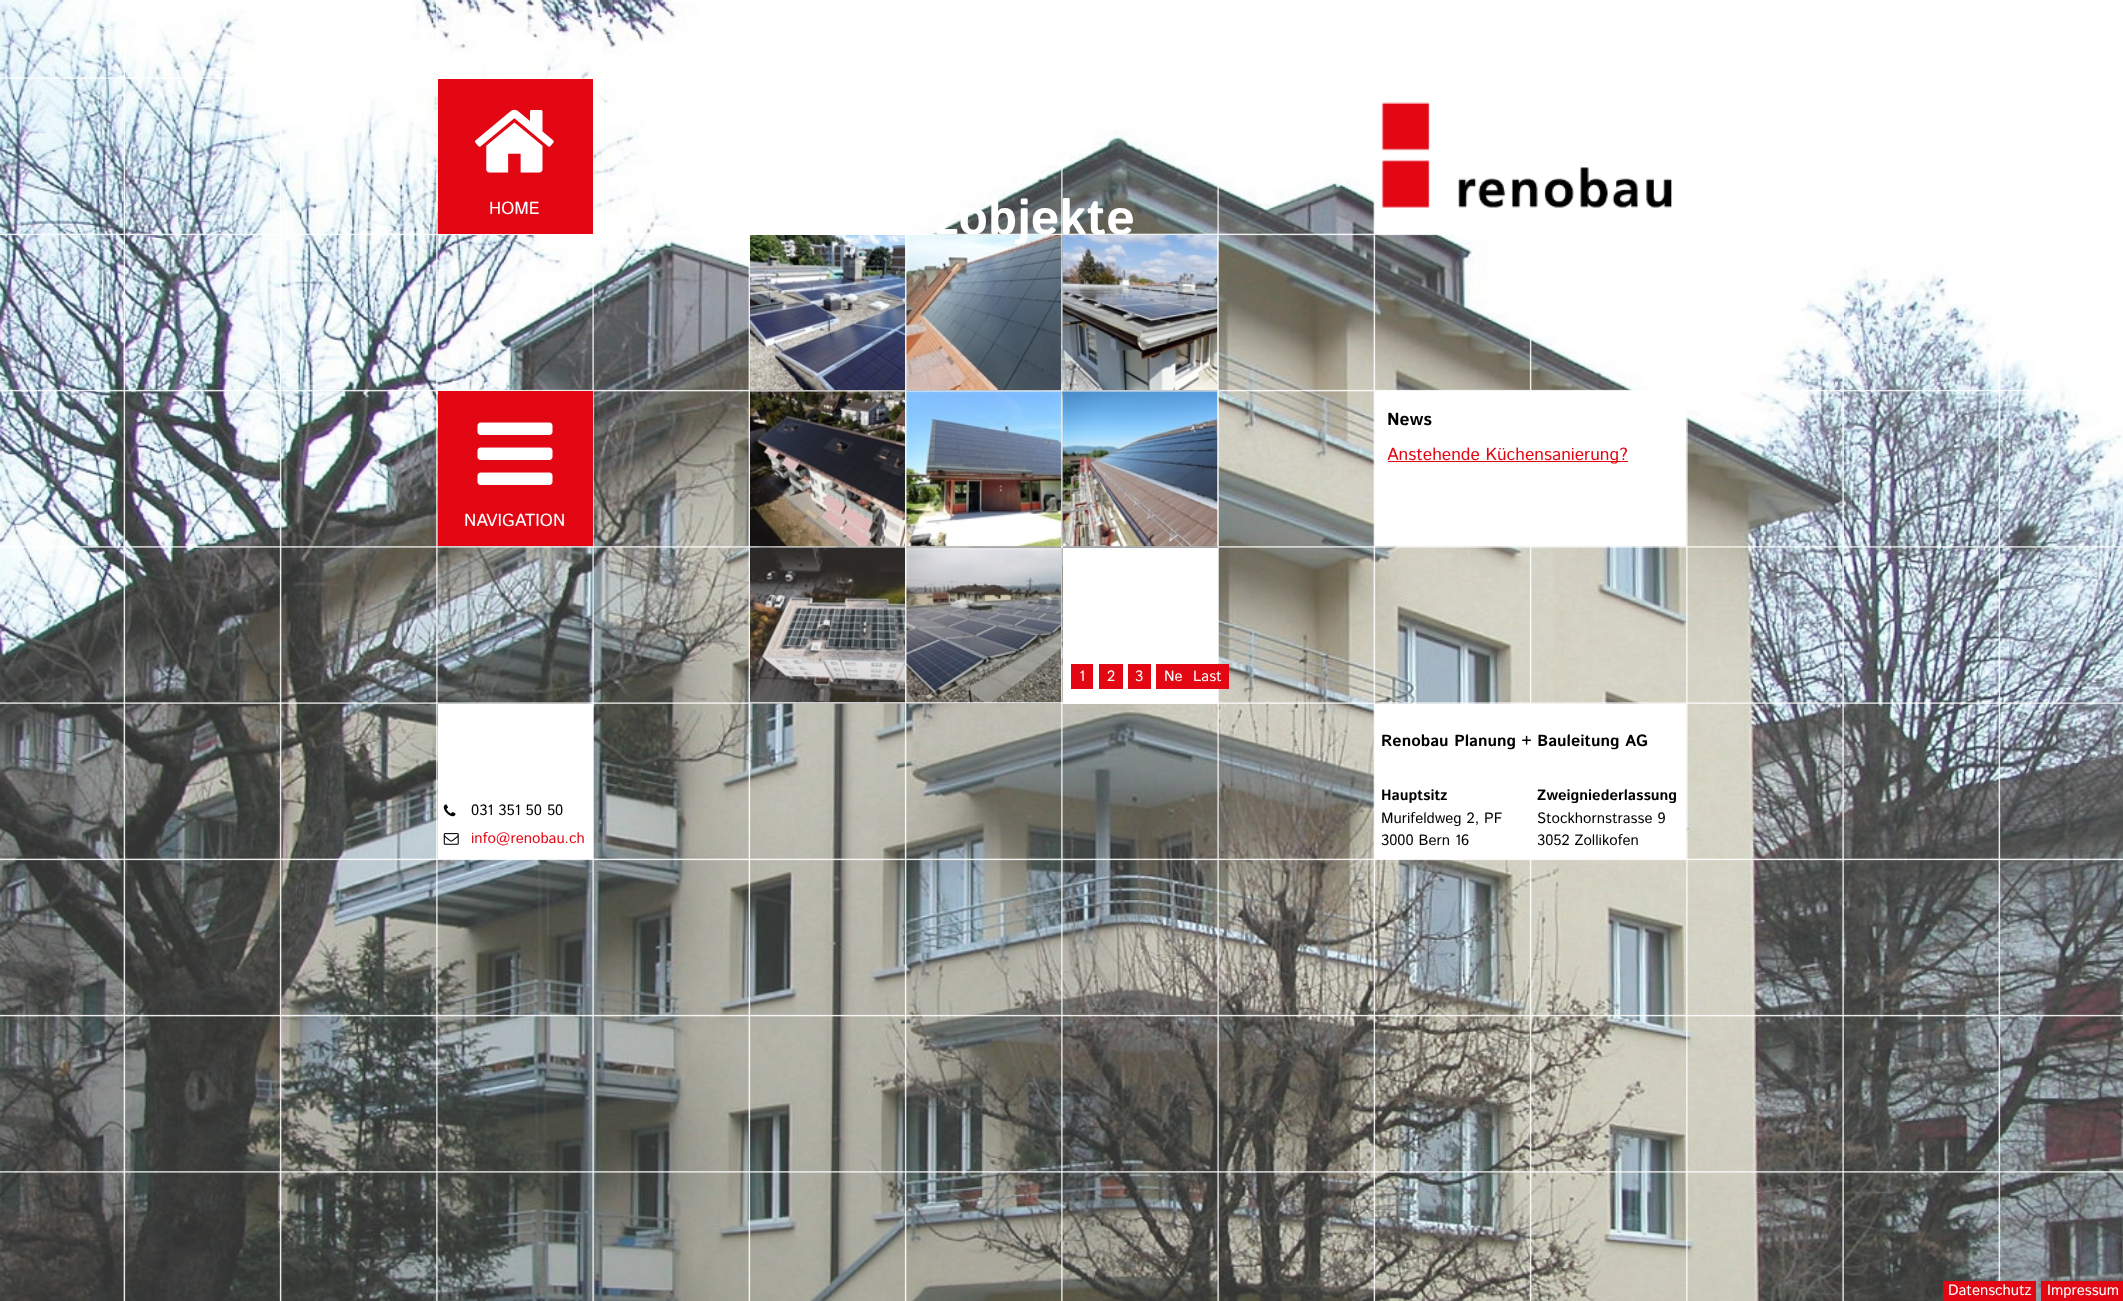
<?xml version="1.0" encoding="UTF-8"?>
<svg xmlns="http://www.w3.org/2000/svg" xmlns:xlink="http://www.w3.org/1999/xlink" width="2123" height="1301">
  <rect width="100%" height="100%" fill="#ffffff" />
  <image x="0" y="0" width="2123" height="1301" xlink:href="image1.png" />
  <image x="0" y="0" width="2123" height="1301" xlink:href="image2.png" />
  <rect x="438" y="79" width="155" height="155" fill="#e30613" />
  <image x="475" y="109" width="79" height="64" xlink:href="image3.png" />
  <rect x="438" y="391" width="155" height="155" fill="#e30613" />
  <image x="477" y="422" width="76" height="63" xlink:href="image4.png" />
  <rect x="438" y="704" width="155" height="155" fill="#ffffff" />
  <image x="443" y="804" width="13" height="13" xlink:href="image5.png" />
  <image x="443" y="833" width="16" height="12" xlink:href="image6.png" />
  <rect x="1375" y="191" width="91" height="43" fill="#ffffff" />
  <image x="1381" y="102" width="291" height="106" xlink:href="image7.png" />
  <rect x="750" y="236" width="155" height="155" fill="#000000" fill-opacity="0.18" filter="blur(0.5px)" />
  <image x="750" y="235" width="155" height="155" xlink:href="image8.png" />
  <rect x="906" y="236" width="155" height="155" fill="#000000" fill-opacity="0.18" filter="blur(0.5px)" />
  <rect x="906" y="235" width="1" height="155" fill="#ffffff" />
  <image x="906" y="235" width="156" height="155" xlink:href="image9.png" />
  <rect x="1063" y="236" width="155" height="155" fill="#000000" fill-opacity="0.18" filter="blur(0.5px)" />
  <rect x="1217" y="235" width="1" height="155" fill="#ffffff" />
  <image x="1062" y="235" width="156" height="155" xlink:href="image10.png" />
  <rect x="750" y="393" width="155" height="155" fill="#000000" fill-opacity="0.18" filter="blur(0.5px)" />
  <rect x="750" y="391" width="155" height="1" fill="#ffffff" />
  <image x="750" y="391" width="155" height="156" xlink:href="image11.png" />
  <rect x="906" y="393" width="155" height="155" fill="#000000" fill-opacity="0.18" filter="blur(0.5px)" />
  <rect x="906" y="391" width="155" height="155" fill="#ffffff" />
  <image x="906" y="391" width="156" height="156" xlink:href="image12.png" />
  <rect x="1063" y="393" width="155" height="155" fill="#000000" fill-opacity="0.18" filter="blur(0.5px)" />
  <rect x="1063" y="391" width="155" height="155" fill="#ffffff" />
  <image x="1062" y="391" width="156" height="156" xlink:href="image13.png" />
  <rect x="750" y="549" width="155" height="155" fill="#000000" fill-opacity="0.18" filter="blur(0.5px)" />
  <rect x="750" y="702" width="155" height="1" fill="#ffffff" />
  <image x="750" y="547" width="155" height="156" xlink:href="image14.png" />
  <rect x="906" y="549" width="155" height="155" fill="#000000" fill-opacity="0.18" filter="blur(0.5px)" />
  <rect x="906" y="548" width="155" height="155" fill="#ffffff" />
  <image x="906" y="547" width="156" height="156" xlink:href="image15.png" />
  <image x="1062" y="547" width="156" height="156" xlink:href="image16.png" />
  <rect x="1063" y="548" width="155" height="156" fill="#ffffff" />
  <rect x="1071" y="664" width="22" height="25" fill="#e30613" />
  <rect x="1099" y="664" width="24" height="25" fill="#e30613" />
  <rect x="1128" y="664" width="23" height="25" fill="#e30613" />
  <rect x="1156" y="664" width="73" height="25" fill="#e30613" />
  <rect x="1375" y="391" width="311" height="155" fill="#ffffff" />
  <rect x="1388" y="461" width="240" height="1" fill="#e30613" />
  <rect x="1375" y="704" width="311" height="155" fill="#ffffff" />
  <rect x="1943" y="1281" width="93" height="20" fill="#e30613" />
  <rect x="2041" y="1281" width="82" height="20" fill="#e30613" />
  <text x="489" y="214" style="font-family: Istok Web; font-size: 17.5px; fill: #ffffff">HOME</text>
  <text x="464" y="526" style="font-family: Istok Web; font-size: 17.5px; fill: #ffffff">NAVIGATION</text>
  <text x="471" y="815" style="font-family: Istok Web; font-size: 15px; fill: #000000">031 351 50 50</text>
  <text x="471" y="843" style="font-family: Istok Web; font-size: 15px; fill: #e30613">info@renobau.ch</text>
  <text x="935" y="234" style="font-family: Istok Web; font-size: 50px; font-weight: bold; fill: #ffffff">zobjekte</text>
  <text x="1079" y="681" style="font-family: Istok Web; font-size: 15px; fill: #ffffff">1</text>
  <text x="1107" y="681" style="font-family: Istok Web; font-size: 15px; fill: #ffffff">2</text>
  <text x="1135" y="681" style="font-family: Istok Web; font-size: 15px; fill: #ffffff">3</text>
  <text x="1164" y="681" style="font-family: Istok Web; font-size: 15px; fill: #ffffff">Ne</text>
  <text x="1193" y="681" style="font-family: Istok Web; font-size: 15px; fill: #ffffff">Last</text>
  <text x="1387" y="425" style="font-family: Istok Web; font-size: 17.5px; font-weight: bold; fill: #000000">News</text>
  <text x="1387" y="460" style="font-family: Istok Web; font-size: 17.5px; fill: #e30613">Anstehende Küchensanierung?</text>
  <text x="1381" y="746" style="font-family: Istok Web; font-size: 16.25px; font-weight: bold; fill: #000000">Renobau Planung + Bauleitung AG</text>
  <text x="1381" y="800" style="font-family: Istok Web; font-size: 15px; font-weight: bold; fill: #000000">Hauptsitz</text>
  <text x="1381" y="823" style="font-family: Istok Web; font-size: 15px; fill: #000000">Murifeldweg 2, PF</text>
  <text x="1381" y="845" style="font-family: Istok Web; font-size: 15px; fill: #000000">3000 Bern 16</text>
  <text x="1537" y="800" style="font-family: Istok Web; font-size: 15px; font-weight: bold; fill: #000000">Zweigniederlassung</text>
  <text x="1537" y="823" style="font-family: Istok Web; font-size: 15px; fill: #000000">Stockhornstrasse 9</text>
  <text x="1537" y="845" style="font-family: Istok Web; font-size: 15px; fill: #000000">3052 Zollikofen</text>
  <text x="1948" y="1295" style="font-family: Istok Web; font-size: 15px; fill: #ffffff">Datenschutz</text>
  <text x="2047" y="1295" style="font-family: Istok Web; font-size: 15px; fill: #ffffff">Impressum</text>
</svg>
